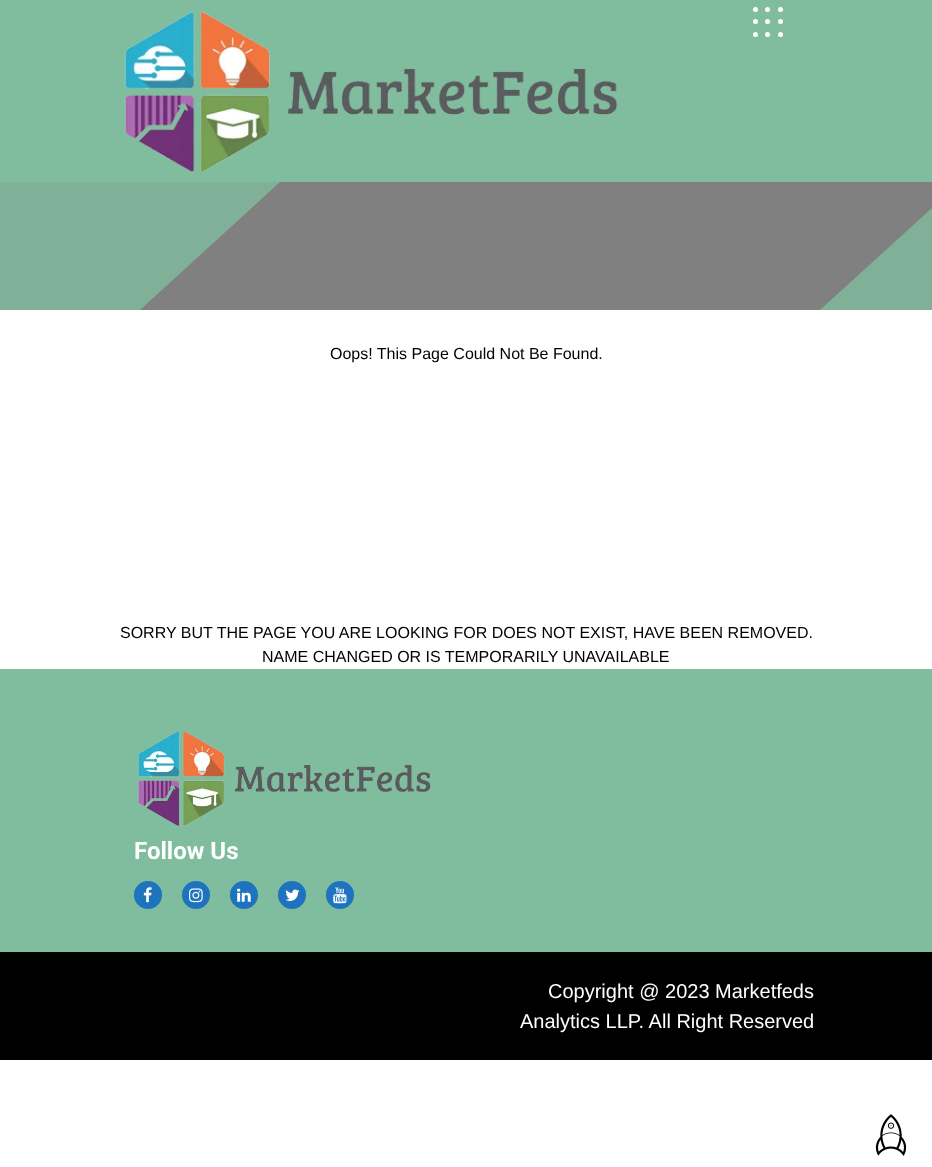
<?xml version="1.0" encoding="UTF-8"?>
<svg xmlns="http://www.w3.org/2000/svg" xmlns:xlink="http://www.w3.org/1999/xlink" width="932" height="1167">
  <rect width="100%" height="100%" fill="#ffffff" />
  <rect width="932" height="182" fill="#80bd9e" />
  <image x="124" y="11" width="494" height="162" xlink:href="image1.png" />
  <circle cx="755.5" cy="9.5" r="2.5" fill="#ffffff" />
  <circle cx="767.5" cy="9.5" r="2.5" fill="#ffffff" />
  <circle cx="780.5" cy="9.5" r="2.5" fill="#ffffff" />
  <circle cx="755.5" cy="21.5" r="2.5" fill="#ffffff" />
  <circle cx="767.5" cy="21.5" r="2.5" fill="#ffffff" />
  <circle cx="780.5" cy="21.5" r="2.5" fill="#ffffff" />
  <circle cx="755.5" cy="34.5" r="2.5" fill="#ffffff" />
  <circle cx="767.5" cy="34.5" r="2.5" fill="#ffffff" />
  <circle cx="780.5" cy="34.5" r="2.5" fill="#ffffff" />
  <rect x="140" y="182" width="792" height="128" fill="#808080" />
  <path d="M 0 182 v 128 h 140 l 140 -128 z" fill="#80b198" />
  <path d="M 932 208 l -112 102 h 112 z" fill="#80b198" />
  <rect y="669" width="932" height="283" fill="#80bd9e" />
  <image x="138" y="731" width="293" height="95" xlink:href="image2.png" />
  <circle cx="148" cy="895" r="14" fill="#1e73be" />
  <image x="143" y="887" width="9" height="16" xlink:href="image3.png" />
  <circle cx="196" cy="895" r="14" fill="#1e73be" />
  <image x="189" y="888" width="14" height="15" xlink:href="image4.png" />
  <circle cx="244" cy="895" r="14" fill="#1e73be" />
  <image x="237" y="888" width="14" height="14" xlink:href="image5.png" />
  <circle cx="292" cy="895" r="14" fill="#1e73be" />
  <image x="285" y="889" width="15" height="12" xlink:href="image6.png" />
  <circle cx="340" cy="895" r="14" fill="#1e73be" />
  <image x="333" y="887" width="14" height="17" xlink:href="image7.png" />
  <rect y="952" width="932" height="108" fill="#000000" />
  <image x="875" y="1114" width="32" height="42" xlink:href="image8.png" />
  <text x="330" y="359" style="font-family: Liberation Sans; font-size: 16px; fill: #000000">Oops! This Page Could Not Be Found.</text>
  <text x="120" y="638" style="font-family: Liberation Sans; font-size: 16px; fill: #000000">SORRY BUT THE PAGE YOU ARE LOOKING FOR DOES NOT EXIST, HAVE BEEN REMOVED.</text>
  <text x="262" y="662" style="font-family: Liberation Sans; font-size: 16px; fill: #000000">NAME CHANGED OR IS TEMPORARILY UNAVAILABLE</text>
  <text x="134" y="859" style="font-family: Roboto; font-size: 24px; font-weight: bold; fill: #ffffff">Follow Us</text>
  <text x="548" y="998" style="font-family: Liberation Sans; font-size: 20px; fill: #ffffff">Copyright @ 2023 Marketfeds</text>
  <text x="520" y="1028" style="font-family: Liberation Sans; font-size: 20px; fill: #ffffff">Analytics LLP. All Right Reserved</text>
</svg>
